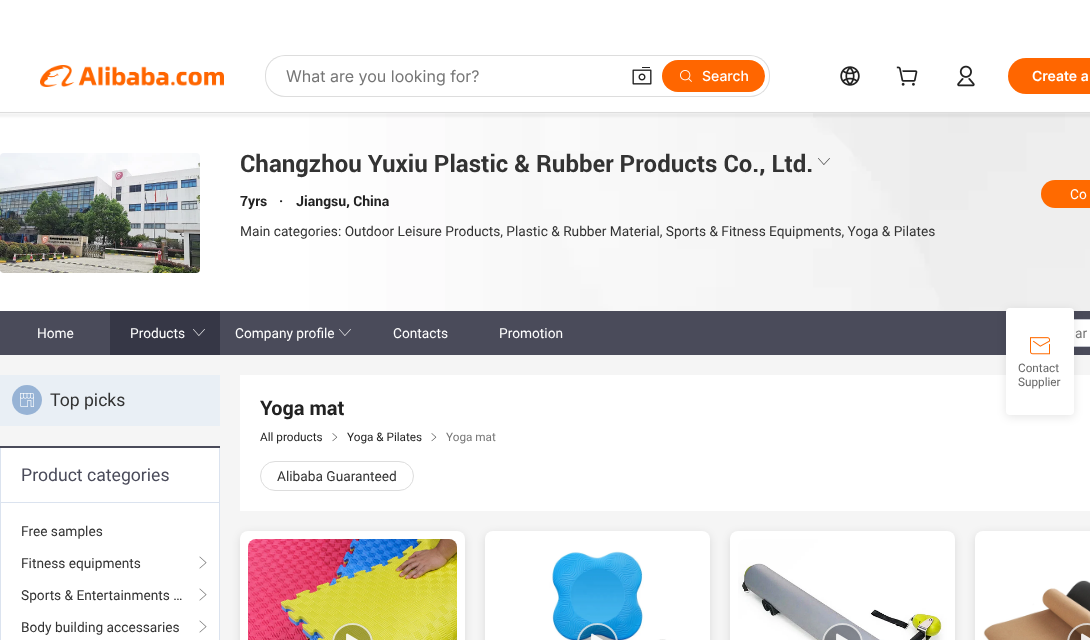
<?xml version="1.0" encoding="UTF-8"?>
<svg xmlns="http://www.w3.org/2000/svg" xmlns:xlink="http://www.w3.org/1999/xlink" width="1090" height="640">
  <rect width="100%" height="100%" fill="#ffffff" />
  <image x="0" y="113" width="1090" height="198" xlink:href="image7.png" />
  <rect x="-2" y="113" width="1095" height="4" fill="#000000" fill-opacity="0.05" filter="blur(1px)" />
  <rect y="112" width="1090" height="1" fill="#dddddd" />
  <image x="40" y="65" width="184" height="22" xlink:href="image1.png" />
  <rect x="265" y="55" width="505" height="42" rx="20" fill="#dddddd" />
  <rect x="266" y="56" width="503" height="40" rx="19" fill="#ffffff" />
  <image x="632" y="67" width="20" height="18" xlink:href="image2.png" />
  <rect x="662" y="60" width="103" height="32" rx="16" fill="#ff6600" />
  <image x="680" y="70" width="12" height="12" xlink:href="image3.png" />
  <image x="840" y="66" width="20" height="20" xlink:href="image4.png" />
  <image x="896" y="66" width="22" height="20" xlink:href="image5.png" />
  <image x="957" y="65" width="18" height="22" xlink:href="image6.png" />
  <rect x="1008" y="58" width="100" height="36" rx="18" fill="#ff6600" />
  <image x="0" y="153" width="200" height="120" xlink:href="image8.png" />
  <image x="818" y="158" width="12" height="7" xlink:href="image9.png" />
  <rect x="1041" y="180" width="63" height="28" rx="14" fill="#ff6a00" />
  <rect y="311" width="1090" height="44" fill="#4a4b5a" />
  <rect x="110" y="311" width="110" height="44" fill="#363746" />
  <image x="193" y="329" width="12" height="7" xlink:href="image10.png" />
  <image x="339" y="329" width="12" height="7" xlink:href="image11.png" />
  <path d="M 1065 319 h 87 v 28 h -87 c -8 0 -14 -6 -14 -14 c 0 -8 6 -14 14 -14 z m 0 1 h 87 v 26 h -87 c -7 0 -13 -6 -13 -13 c 0 -7 6 -13 13 -13 z" fill="#c4c6cf" fill-rule="evenodd" />
  <rect x="1074" y="320" width="16" height="26" fill="#ffffff" />
  <rect y="355" width="1090" height="285" fill="#f5f5f5" />
  <rect y="375" width="220" height="51" fill="#e9eff5" />
  <circle cx="27" cy="400" r="15" fill="#97b3d5" />
  <image x="20" y="393" width="14" height="14" xlink:href="image12.png" />
  <rect x="1" y="448" width="218" height="192" fill="#ffffff" />
  <rect y="446" width="220" height="2" fill="#4a4b5a" />
  <rect x="219" y="448" width="1" height="192" fill="#dbe3ef" />
  <rect y="448" width="1" height="192" fill="#dbe3ef" />
  <rect x="1" y="502" width="218" height="1" fill="#dbe3ef" />
  <image x="199" y="556" width="8" height="13" xlink:href="image13.png" />
  <image x="199" y="588" width="8" height="13" xlink:href="image13.png" />
  <image x="199" y="620" width="8" height="13" xlink:href="image13.png" />
  <rect x="240" y="375" width="850" height="136" fill="#ffffff" />
  <image x="332" y="433" width="6" height="9" xlink:href="image14.png" />
  <image x="431" y="433" width="6" height="9" xlink:href="image15.png" />
  <rect x="260.5" y="461.5" width="153" height="29" rx="14.5" fill="none" stroke="#dddddd" />
  <rect x="240" y="533" width="225" height="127" rx="8" fill="#000000" fill-opacity="0.1" filter="blur(4px)" />
  <rect x="240" y="531" width="225" height="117" rx="8" fill="#ffffff" />
  <image x="248" y="539" width="209" height="101" xlink:href="image16.png" />
  <rect x="332" y="623" width="41" height="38" rx="20.5" fill="#000000" fill-opacity="0.27" />
  <rect x="333" y="624" width="39" height="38" rx="19.5" fill="none" stroke="#ffffff" stroke-opacity="0.72" stroke-width="2" />
  <image x="346" y="633" width="12" height="7" xlink:href="image17.png" />
  <rect x="485" y="533" width="225" height="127" rx="8" fill="#000000" fill-opacity="0.1" filter="blur(4px)" />
  <rect x="485" y="531" width="225" height="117" rx="8" fill="#ffffff" />
  <image x="493" y="539" width="209" height="101" xlink:href="image18.png" />
  <rect x="577" y="623" width="41" height="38" rx="20.5" fill="#000000" fill-opacity="0.27" />
  <rect x="578" y="624" width="39" height="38" rx="19.5" fill="none" stroke="#ffffff" stroke-opacity="0.72" stroke-width="2" />
  <image x="591" y="633" width="12" height="7" xlink:href="image19.png" />
  <rect x="730" y="533" width="225" height="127" rx="8" fill="#000000" fill-opacity="0.1" filter="blur(4px)" />
  <rect x="730" y="531" width="225" height="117" rx="8" fill="#ffffff" />
  <image x="738" y="539" width="209" height="101" xlink:href="image20.png" />
  <rect x="822" y="623" width="41" height="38" rx="20.5" fill="#000000" fill-opacity="0.27" />
  <rect x="823" y="624" width="39" height="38" rx="19.5" fill="none" stroke="#ffffff" stroke-opacity="0.72" stroke-width="2" />
  <image x="836" y="633" width="12" height="7" xlink:href="image21.png" />
  <rect x="975" y="533" width="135" height="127" rx="8" fill="#000000" fill-opacity="0.1" filter="blur(4px)" />
  <rect x="975" y="531" width="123" height="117" rx="8" fill="#ffffff" />
  <image x="983" y="539" width="107" height="101" xlink:href="image22.png" />
  <rect x="1067" y="623" width="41" height="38" rx="20.5" fill="#000000" fill-opacity="0.27" />
  <rect x="1068" y="624" width="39" height="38" rx="19.5" fill="none" stroke="#ffffff" stroke-opacity="0.72" stroke-width="2" />
  <image x="1081" y="633" width="9" height="7" xlink:href="image23.png" />
  <rect x="1006" y="310" width="68" height="107" rx="4" fill="#000000" fill-opacity="0.1" filter="blur(5px)" />
  <rect x="1006" y="308" width="68" height="107" rx="4" fill="#ffffff" />
  <image x="1030" y="337" width="20" height="18" xlink:href="image24.png" />
  <text x="286" y="82" style="font-family: Inter; font-size: 16px; fill: #767676">What are you looking for?</text>
  <text x="702" y="81" style="font-family: Inter; font-size: 14px; font-weight: 500; fill: #ffffff">Search</text>
  <text x="1032" y="81" style="font-family: Inter; font-size: 14px; font-weight: 600; fill: #ffffff">Create a</text>
  <text x="240" y="172" style="font-family: Roboto; font-size: 24px; font-weight: bold; fill: #333333">Changzhou Yuxiu Plastic &amp; Rubber Products Co., Ltd.</text>
  <text x="240" y="206" style="font-family: Roboto; font-size: 14px; font-weight: bold; fill: #222222">7yrs</text>
  <text x="279" y="206" style="font-family: Roboto; font-size: 14px; font-weight: bold; fill: #222222">·</text>
  <text x="296" y="206" style="font-family: Roboto; font-size: 14px; font-weight: bold; fill: #222222">Jiangsu, China</text>
  <text x="240" y="236" style="font-family: Roboto; font-size: 14px; fill: #333333">Main categories: Outdoor Leisure Products, Plastic &amp; Rubber Material, Sports &amp; Fitness Equipments, Yoga &amp; Pilates</text>
  <text x="1070" y="199" style="font-family: Roboto; font-size: 14px; fill: #ffffff">Co</text>
  <text x="37" y="338" style="font-family: Roboto; font-size: 14px; fill: #ffffff">Home</text>
  <text x="130" y="338" style="font-family: Roboto; font-size: 14px; fill: #ffffff">Products</text>
  <text x="235" y="338" style="font-family: Roboto; font-size: 14px; fill: #ffffff">Company profile</text>
  <text x="393" y="338" style="font-family: Roboto; font-size: 14px; fill: #ffffff">Contacts</text>
  <text x="499" y="338" style="font-family: Roboto; font-size: 14px; fill: #ffffff">Promotion</text>
  <text x="1075" y="338" style="font-family: Roboto; font-size: 14px; fill: #767676">ar</text>
  <text x="50" y="406" style="font-family: Roboto; font-size: 18px; fill: #333333">Top picks</text>
  <text x="21" y="481" style="font-family: Roboto; font-size: 18px; fill: #4a4b5a">Product categories</text>
  <text x="21" y="536" style="font-family: Roboto; font-size: 14px; fill: #333333">Free samples</text>
  <text x="21" y="568" style="font-family: Roboto; font-size: 14px; fill: #333333">Fitness equipments</text>
  <text x="21" y="600" style="font-family: Roboto; font-size: 14px; fill: #333333">Sports &amp; Entertainments …</text>
  <text x="21" y="632" style="font-family: Roboto; font-size: 14px; fill: #333333">Body building accessaries</text>
  <text x="260" y="415" style="font-family: Roboto; font-size: 20px; font-weight: bold; fill: #222222">Yoga mat</text>
  <text x="260" y="441" style="font-family: Roboto; font-size: 12px; fill: #222222">All products</text>
  <text x="347" y="441" style="font-family: Roboto; font-size: 12px; fill: #222222">Yoga &amp; Pilates</text>
  <text x="446" y="441" style="font-family: Roboto; font-size: 12px; fill: #767676">Yoga mat</text>
  <text x="277" y="481" style="font-family: Roboto; font-size: 14px; fill: #333333">Alibaba Guaranteed</text>
  <text x="1018" y="372" style="font-family: Roboto; font-size: 12px; fill: #666666">Contact</text>
  <text x="1018" y="386" style="font-family: Roboto; font-size: 12px; fill: #666666">Supplier</text>
</svg>
